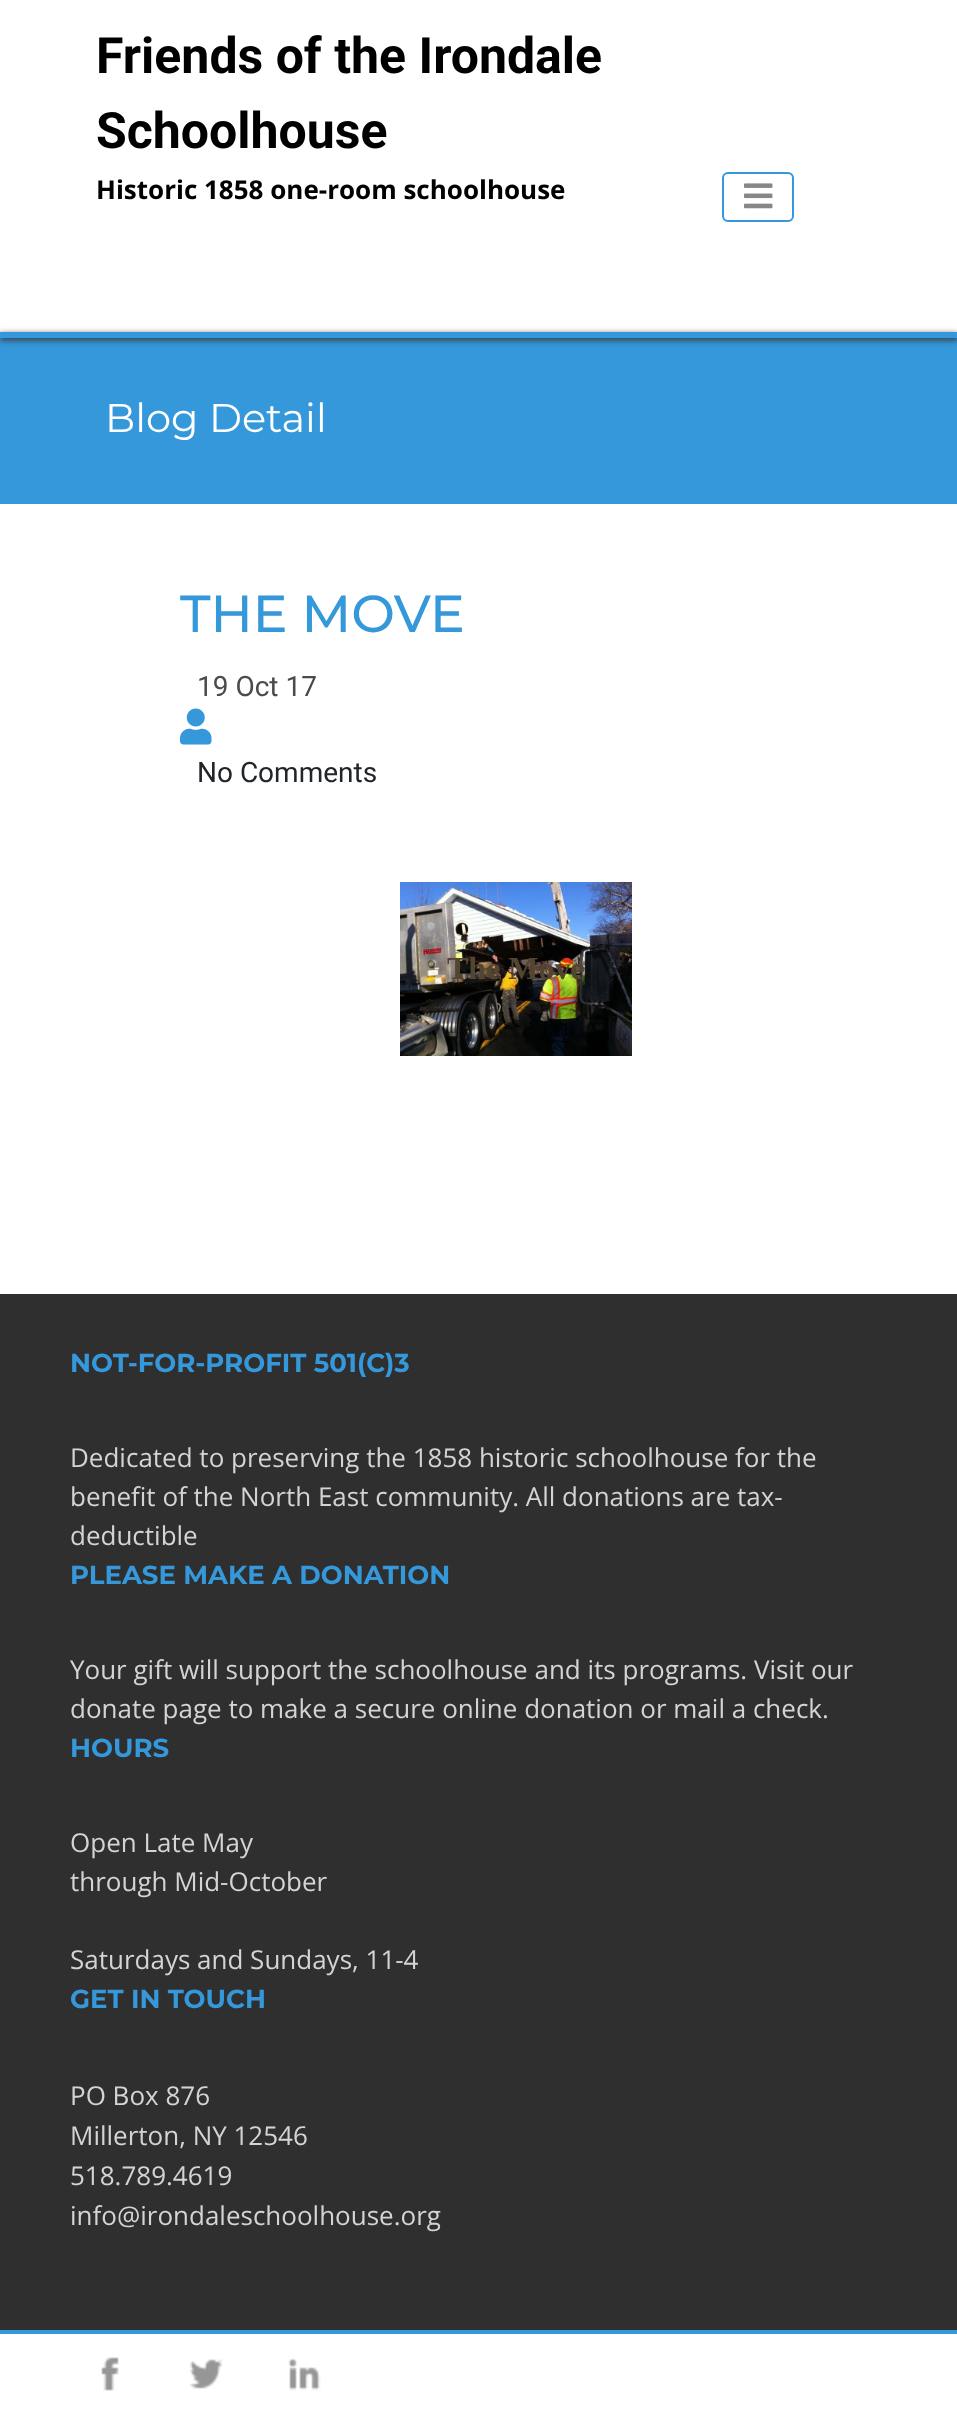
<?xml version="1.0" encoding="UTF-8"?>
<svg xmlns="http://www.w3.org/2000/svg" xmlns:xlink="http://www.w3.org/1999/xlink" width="957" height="2412">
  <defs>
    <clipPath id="clip1"><path d="M 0 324 h 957 v 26 h -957 z m 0 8 h 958 v 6 h -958 z" clip-rule="evenodd" /></clipPath>
  </defs>
  <rect width="100%" height="100%" fill="#ffffff" />
  <rect x="723" y="173" width="70" height="48" rx="5" fill="none" stroke="#3498db" stroke-width="2" />
  <image x="744" y="183" width="29" height="26" xlink:href="image1.png" />
  <rect y="332" width="957" height="172" fill="#3498db" />
  <g clip-path="url(#clip1)">
    <rect y="334" width="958" height="6" fill="#333333" filter="blur(3px)" />
  </g>
  <image x="180" y="708" width="32" height="37" xlink:href="image2.png" />
  <image x="400" y="882" width="232" height="174" xlink:href="image3.png" />
  <rect y="1294" width="957" height="1036" fill="#2f2f2f" />
  <rect y="2330" width="957" height="4" fill="#3498db" />
  <image x="101" y="2357" width="18" height="34" xlink:href="image4.png" />
  <image x="189" y="2359" width="34" height="30" xlink:href="image5.png" />
  <image x="288" y="2358" width="33" height="33" xlink:href="image6.png" />
  <text x="96" y="73" style="font-family: Roboto; font-size: 50px; font-weight: bold; fill: #000000">Friends of the Irondale</text>
  <text x="96" y="148" style="font-family: Roboto; font-size: 50px; font-weight: bold; fill: #000000">Schoolhouse</text>
  <text x="96" y="199" style="font-family: Open Sans; font-size: 26px; font-weight: bold; fill: #000000">Historic 1858 one-room schoolhouse</text>
  <text x="105" y="432" style="font-family: Montserrat; font-size: 40px; fill: #ffffff">Blog Detail</text>
  <text x="180" y="632" style="font-family: Montserrat; font-size: 52px; font-weight: 500; fill: #3498db">THE MOVE</text>
  <text x="197" y="696" style="font-family: Roboto; font-size: 28px; fill: #4b4b4b">19 Oct 17</text>
  <text x="197" y="782" style="font-family: Roboto; font-size: 28px; fill: #212529">No Comments</text>
  <text x="447" y="979" style="font-family: Liberation Serif; font-size: 32px; font-weight: bold; fill: #524632">The Move</text>
  <text x="70" y="1372" style="font-family: Montserrat; font-size: 26px; font-weight: bold; fill: #3498db">NOT-FOR-PROFIT 501(C)3</text>
  <text x="70" y="1467" style="font-family: Open Sans; font-size: 26px; fill: #d4d4d4">Dedicated to preserving the 1858 historic schoolhouse for the</text>
  <text x="70" y="1506" style="font-family: Open Sans; font-size: 26px; fill: #d4d4d4">benefit of the North East community. All donations are tax-</text>
  <text x="70" y="1545" style="font-family: Open Sans; font-size: 26px; fill: #d4d4d4">deductible</text>
  <text x="70" y="1584" style="font-family: Montserrat; font-size: 26px; font-weight: bold; fill: #3498db">PLEASE MAKE A DONATION</text>
  <text x="70" y="1679" style="font-family: Open Sans; font-size: 26px; fill: #d4d4d4">Your gift will support the schoolhouse and its programs. Visit our</text>
  <text x="70" y="1718" style="font-family: Open Sans; font-size: 26px; fill: #d4d4d4">donate page to make a secure online donation or mail a check.</text>
  <text x="70" y="1757" style="font-family: Montserrat; font-size: 26px; font-weight: bold; fill: #3498db">HOURS</text>
  <text x="70" y="1852" style="font-family: Open Sans; font-size: 26px; fill: #d4d4d4">Open Late May</text>
  <text x="70" y="1891" style="font-family: Open Sans; font-size: 26px; fill: #d4d4d4">through Mid-October</text>
  <text x="70" y="1969" style="font-family: Open Sans; font-size: 26px; fill: #d4d4d4">Saturdays and Sundays, 11-4</text>
  <text x="70" y="2008" style="font-family: Montserrat; font-size: 26px; font-weight: bold; fill: #3498db">GET IN TOUCH</text>
  <text x="70" y="2105" style="font-family: Open Sans; font-size: 26px; fill: #d4d4d4">PO Box 876</text>
  <text x="70" y="2145" style="font-family: Open Sans; font-size: 26px; fill: #d4d4d4">Millerton, NY 12546</text>
  <text x="70" y="2185" style="font-family: Open Sans; font-size: 26px; fill: #d4d4d4">518.789.4619</text>
  <text x="70" y="2225" style="font-family: Open Sans; font-size: 26px; fill: #d4d4d4">info@irondaleschoolhouse.org</text>
</svg>
